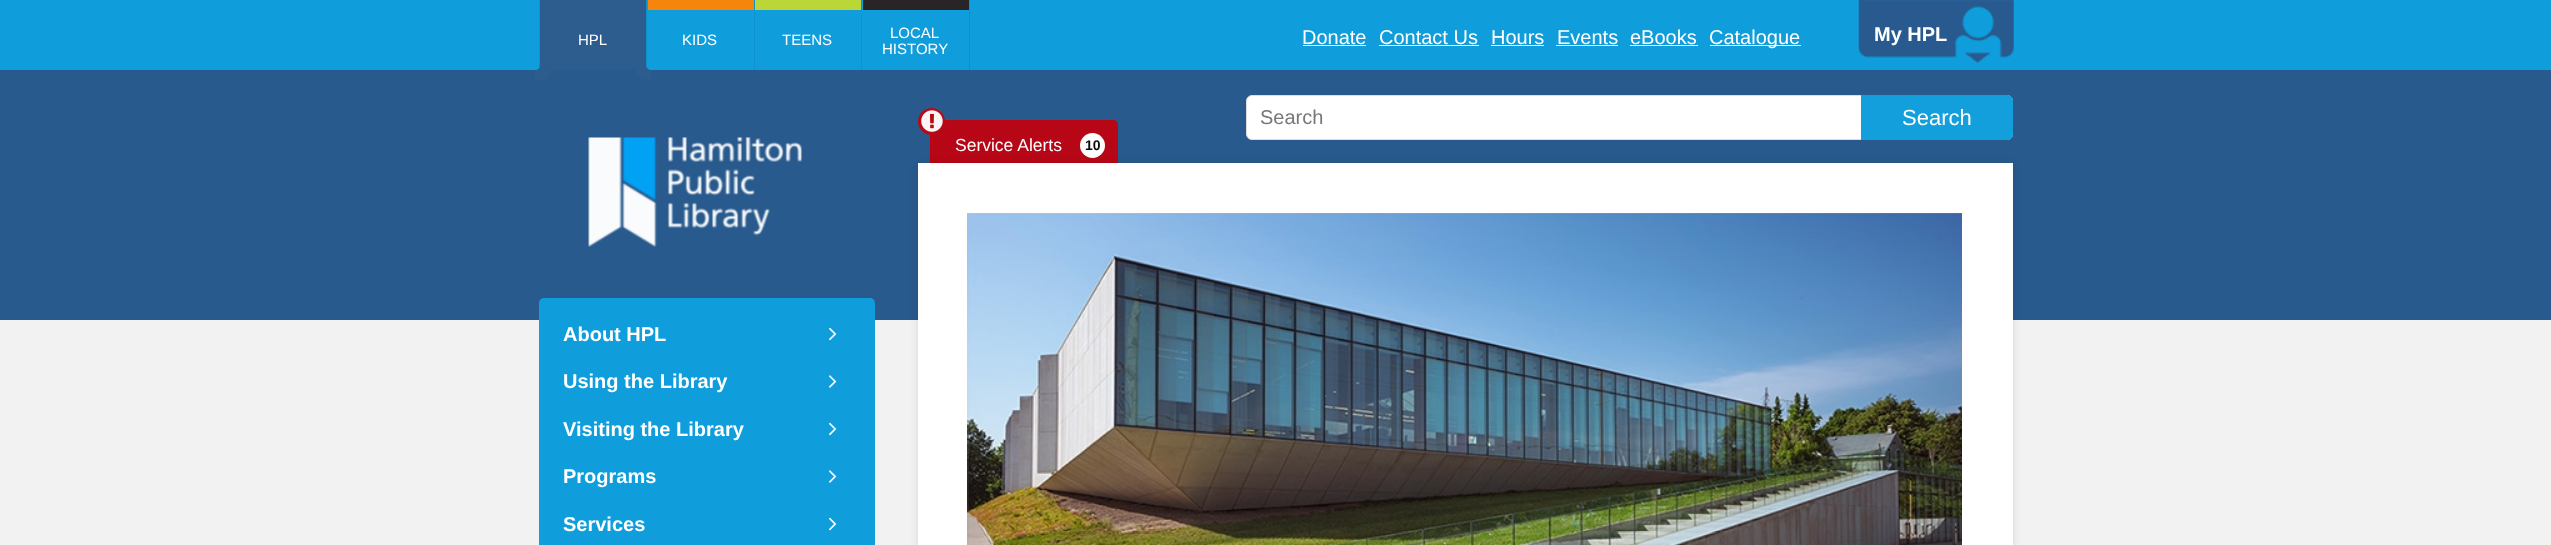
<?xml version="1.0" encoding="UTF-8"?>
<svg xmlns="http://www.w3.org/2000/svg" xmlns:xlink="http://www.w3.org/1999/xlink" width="2551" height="545">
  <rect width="100%" height="100%" fill="#f2f2f2" />
  <rect width="2551" height="70" fill="#0f9edb" />
  <rect x="646" width="1" height="70" fill="#0f91cd" />
  <rect x="539" width="1" height="70" fill="#0f91cd" />
  <rect x="540" width="106" height="70" fill="#2d5d8f" />
  <rect y="70" width="2551" height="250" fill="#295a8d" />
  <path d="M 550 65 h -10 c 0 3 -2 5 -5 5 v 10 c 6.5 0 13 0 15 -8 z" fill="#2d5d8f" />
  <path d="M 636 65 v 7 c 2 8 8.5 8 15 8 v -10 c -2.5 0 -5 -2.5 -5 -5 z" fill="#2d5d8f" />
  <rect x="754" width="1" height="70" fill="#0f91cd" />
  <rect x="648" width="106" height="10" fill="#f5860b" />
  <rect x="861" width="1" height="70" fill="#0f91cd" />
  <rect x="755" width="106" height="10" fill="#bbd637" />
  <rect x="969" width="1" height="70" fill="#0f91cd" />
  <rect x="863" width="106" height="10" fill="#292526" />
  <rect x="1303" y="45" width="63" height="1" fill="#ffffff" />
  <rect x="1379" y="45" width="100" height="1" fill="#ffffff" />
  <rect x="1491" y="45" width="53" height="1" fill="#ffffff" />
  <rect x="1556" y="45" width="62" height="1" fill="#ffffff" />
  <rect x="1630" y="45" width="68" height="1" fill="#ffffff" />
  <rect x="1710" y="45" width="91" height="1" fill="#ffffff" />
  <image x="1858" y="0" width="156" height="63" xlink:href="image1.png" />
  <rect x="1246.5" y="95.5" width="766" height="44" rx="5.5" fill="#ffffff" stroke="#dedede" />
  <path d="M 1861 95 h 146 c 3.5 0 6 2.5 6 6 v 33 c 0 3.5 -2.5 6 -6 6 h -146 z" fill="#129fdb" />
  <path d="M 935 120 h 178 c 3 0 5 2 5 5 v 45 h -188 v -45 c 0 -3 2 -5 5 -5 z" fill="#b70717" />
  <circle cx="931.5" cy="121.5" r="13.5" fill="#b70a19" />
  <image x="921" y="110" width="22" height="22" xlink:href="image2.png" />
  <circle cx="1092.5" cy="145.5" r="12.5" fill="#fefefe" />
  <rect x="918" y="164" width="1095" height="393" fill="#020202" fill-opacity="0.1" filter="blur(4px)" />
  <rect x="918" y="163" width="1095" height="382" fill="#ffffff" />
  <image x="967" y="213" width="995" height="332" xlink:href="image3.png" />
  <image x="588" y="137" width="214" height="110" xlink:href="image4.png" />
  <rect x="539" y="298" width="336" height="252" rx="5" fill="#0f9edb" />
  <image x="829" y="327" width="8" height="14" xlink:href="image5.png" />
  <image x="829" y="375" width="8" height="13" xlink:href="image6.png" />
  <image x="829" y="422" width="8" height="14" xlink:href="image5.png" />
  <image x="829" y="470" width="8" height="13" xlink:href="image6.png" />
  <image x="829" y="517" width="8" height="14" xlink:href="image5.png" />
  <text x="578" y="45" style="font-family: Liberation Sans; font-size: 15px; fill: #ffffff">HPL</text>
  <text x="682" y="45" style="font-family: Liberation Sans; font-size: 15px; fill: #ffffff">KIDS</text>
  <text x="782" y="45" style="font-family: Liberation Sans; font-size: 15px; fill: #ffffff">TEENS</text>
  <text x="890" y="38" style="font-family: Liberation Sans; font-size: 15px; fill: #ffffff">LOCAL</text>
  <text x="882" y="54" style="font-family: Liberation Sans; font-size: 15px; fill: #ffffff">HISTORY</text>
  <text x="1302" y="44" style="font-family: Liberation Sans; font-size: 20px; fill: #ffffff">Donate</text>
  <text x="1379" y="44" style="font-family: Liberation Sans; font-size: 20px; fill: #ffffff">Contact Us</text>
  <text x="1491" y="44" style="font-family: Liberation Sans; font-size: 20px; fill: #ffffff">Hours</text>
  <text x="1557" y="44" style="font-family: Liberation Sans; font-size: 20px; fill: #ffffff">Events</text>
  <text x="1630" y="44" style="font-family: Liberation Sans; font-size: 20px; fill: #ffffff">eBooks</text>
  <text x="1709" y="44" style="font-family: Liberation Sans; font-size: 20px; fill: #ffffff">Catalogue</text>
  <text x="1874" y="41" style="font-family: Liberation Sans; font-size: 20px; font-weight: bold; fill: #ffffff">My HPL</text>
  <text x="1260" y="124" style="font-family: Liberation Sans; font-size: 20px; fill: #777777">Search</text>
  <text x="1902" y="125" style="font-family: Liberation Sans; font-size: 22px; fill: #ffffff">Search</text>
  <text x="955" y="151" style="font-family: Liberation Sans; font-size: 17.5px; fill: #ffffff">Service Alerts</text>
  <text x="1085" y="150" style="font-family: Liberation Sans; font-size: 14px; font-weight: bold; fill: #0a0a0a">10</text>
  <text x="563" y="341" style="font-family: Liberation Sans; font-size: 20px; font-weight: bold; fill: #ffffff">About HPL</text>
  <text x="563" y="388" style="font-family: Liberation Sans; font-size: 20px; font-weight: bold; fill: #ffffff">Using the Library</text>
  <text x="563" y="436" style="font-family: Liberation Sans; font-size: 20px; font-weight: bold; fill: #ffffff">Visiting the Library</text>
  <text x="563" y="483" style="font-family: Liberation Sans; font-size: 20px; font-weight: bold; fill: #ffffff">Programs</text>
  <text x="563" y="531" style="font-family: Liberation Sans; font-size: 20px; font-weight: bold; fill: #ffffff">Services</text>
</svg>
